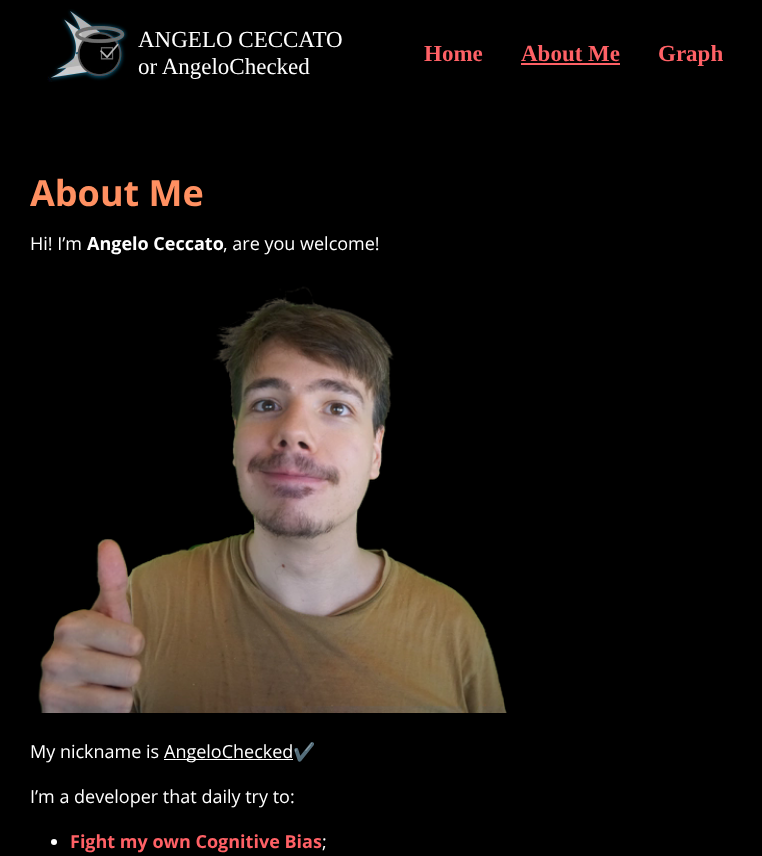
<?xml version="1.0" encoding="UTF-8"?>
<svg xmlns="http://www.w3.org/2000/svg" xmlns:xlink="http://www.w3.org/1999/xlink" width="762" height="856">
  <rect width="100%" height="100%" fill="#000000" />
  <image x="47" y="9" width="81" height="73" xlink:href="image1.png" />
  <rect x="521" y="63" width="99" height="2" fill="#ff6166" />
  <image x="38" y="286" width="469" height="427" xlink:href="image2.png" />
  <rect x="164" y="759" width="129" height="1" fill="#ffffff" />
  <circle cx="54" cy="842" r="3" fill="#ffffff" />
  <text x="138" y="47" style="font-family: Liberation Serif; font-size: 23px; fill: #ffffff">ANGELO CECCATO</text>
  <text x="138" y="74" style="font-family: Liberation Serif; font-size: 23px; fill: #ffffff">or AngeloChecked</text>
  <text x="424" y="61" style="font-family: Liberation Serif; font-size: 23px; font-weight: bold; fill: #ff6166">Home</text>
  <text x="521" y="61" style="font-family: Liberation Serif; font-size: 23px; font-weight: bold; fill: #ff6166">About Me</text>
  <text x="658" y="61" style="font-family: Liberation Serif; font-size: 23px; font-weight: bold; fill: #ff6166">Graph</text>
  <text x="30" y="206" style="font-family: Open Sans; font-size: 36px; font-weight: bold; fill: #ff9061">About Me</text>
  <text x="30" y="250" style="font-family: Open Sans; font-size: 18px; fill: #ffffff">Hi! I’m</text>
  <text x="87" y="250" style="font-family: Open Sans; font-size: 18px; font-weight: bold; fill: #ffffff">Angelo Ceccato</text>
  <text x="223" y="250" style="font-family: Open Sans; font-size: 18px; fill: #ffffff">, are you welcome!</text>
  <text x="30" y="758" style="font-family: Open Sans; font-size: 18px; fill: #ffffff">My nickname is</text>
  <text x="164" y="758" style="font-family: Open Sans; font-size: 18px; fill: #ffffff">AngeloChecked</text>
  <text x="293" y="758" style="font-family: Noto Color Emoji; font-size: 18px; fill: #ffffff">✔️</text>
  <text x="30" y="803" style="font-family: Open Sans; font-size: 18px; fill: #ffffff">I’m a developer that daily try to:</text>
  <text x="70" y="848" style="font-family: Open Sans; font-size: 18px; font-weight: bold; fill: #ff6166">Fight my own Cognitive Bias</text>
  <text x="322" y="848" style="font-family: Open Sans; font-size: 18px; fill: #ffffff">;</text>
</svg>
